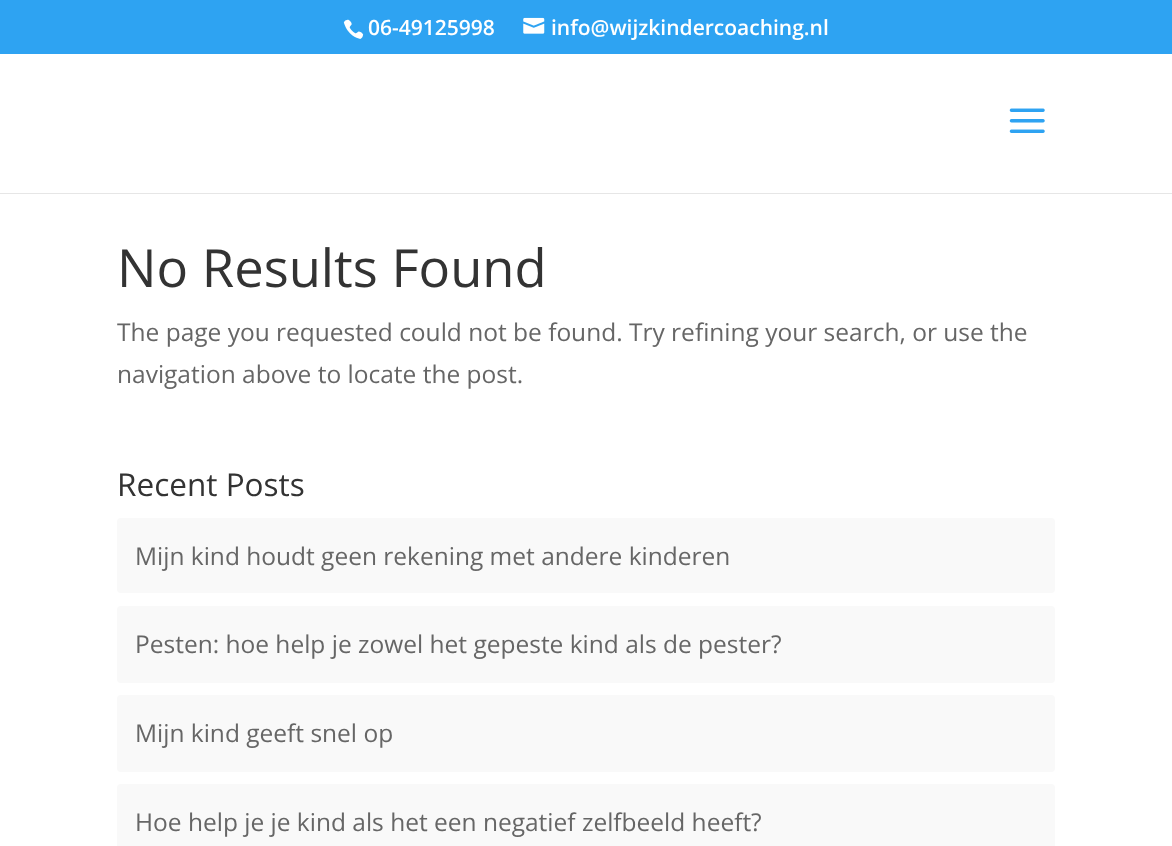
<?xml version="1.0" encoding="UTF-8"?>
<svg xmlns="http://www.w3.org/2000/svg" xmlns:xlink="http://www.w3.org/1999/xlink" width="1172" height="846">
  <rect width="100%" height="100%" fill="#ffffff" />
  <rect width="1172" height="54" fill="#2ea3f2" />
  <image x="343" y="19" width="21" height="20" xlink:href="image1.png" />
  <image x="523" y="17" width="22" height="17" xlink:href="image2.png" />
  <path d="M 0 192 v 2 h 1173 v -140 h -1 v 138 z" fill="#e6e6e6" />
  <rect y="192" width="1172" height="1" fill="#ffffff" />
  <image x="1009" y="108" width="36" height="25" xlink:href="image3.png" />
  <rect x="117" y="518" width="938" height="75" rx="4" fill="#f9f9f9" />
  <rect x="117" y="606" width="938" height="77" rx="4" fill="#f9f9f9" />
  <rect x="117" y="695" width="938" height="77" rx="4" fill="#f9f9f9" />
  <rect x="117" y="784" width="938" height="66" rx="4" fill="#f9f9f9" />
  <text x="368" y="35" style="font-family: Open Sans; font-size: 21px; font-weight: 600; fill: #ffffff">06-49125998</text>
  <text x="551" y="35" style="font-family: Open Sans; font-size: 21px; font-weight: 600; fill: #ffffff">info@wijzkindercoaching.nl</text>
  <text x="117" y="287" style="font-family: Open Sans; font-size: 52.5px; fill: #333333">No Results Found</text>
  <text x="117" y="341" style="font-family: Open Sans; font-size: 24.5px; fill: #666666">The page you requested could not be found. Try refining your search, or use the</text>
  <text x="117" y="383" style="font-family: Open Sans; font-size: 24.5px; fill: #666666">navigation above to locate the post.</text>
  <text x="117" y="496" style="font-family: Open Sans; font-size: 31.5px; fill: #333333">Recent Posts</text>
  <text x="135" y="565" style="font-family: Open Sans; font-size: 24.5px; fill: #666666">Mijn kind houdt geen rekening met andere kinderen</text>
  <text x="135" y="653" style="font-family: Open Sans; font-size: 24.5px; fill: #666666">Pesten: hoe help je zowel het gepeste kind als de pester?</text>
  <text x="135" y="742" style="font-family: Open Sans; font-size: 24.5px; fill: #666666">Mijn kind geeft snel op</text>
  <text x="135" y="831" style="font-family: Open Sans; font-size: 24.5px; fill: #666666">Hoe help je je kind als het een negatief zelfbeeld heeft?</text>
</svg>
